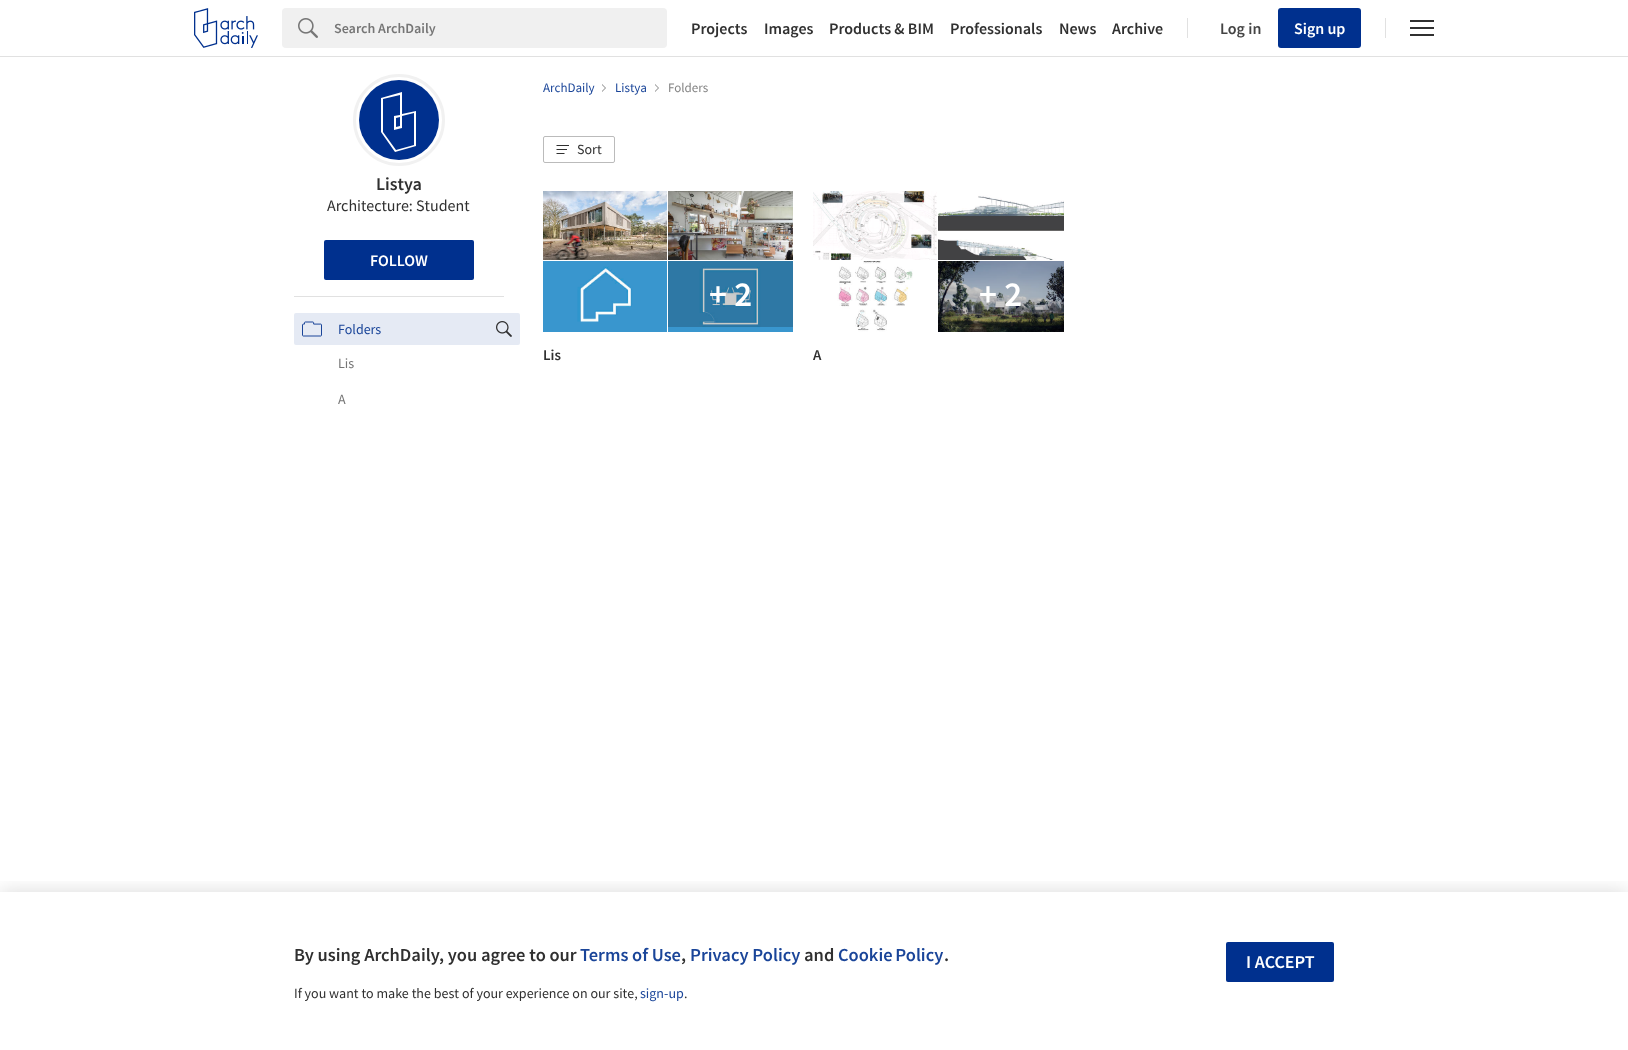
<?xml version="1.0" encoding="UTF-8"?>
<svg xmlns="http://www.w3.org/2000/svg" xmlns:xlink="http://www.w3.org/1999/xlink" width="1628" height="1050">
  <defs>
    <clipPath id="clip1"><rect x="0" y="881" width="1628" height="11" /></clipPath>
  </defs>
  <rect width="100%" height="100%" fill="#ffffff" />
  <rect y="56" width="1628" height="1" fill="#e1e1e1" />
  <image x="194" y="8" width="64" height="40" xlink:href="image1.png" />
  <rect x="282" y="8" width="385" height="40" rx="4" fill="#f0f0f0" />
  <image x="298" y="18" width="20" height="20" xlink:href="image2.png" />
  <rect x="1187" y="18" width="1" height="20" fill="#e1e1e1" />
  <rect x="1278" y="8" width="83" height="40" rx="3" fill="#00308e" />
  <rect x="1385" y="18" width="1" height="20" fill="#e1e1e1" />
  <rect x="1410" y="27" width="24" height="2" fill="#303030" />
  <rect x="1410" y="20" width="24" height="2" fill="#303030" />
  <rect x="1410" y="34" width="24" height="2" fill="#303030" />
  <g clip-path="url(#clip1)">
    <rect y="892" width="1628" height="158" fill="#000000" fill-opacity="0.15" filter="blur(10px)" />
  </g>
  <rect x="1226" y="942" width="108" height="40" rx="2" fill="#00308e" />
  <circle cx="399" cy="120" r="43" fill="none" stroke="#f1f1f1" stroke-width="6" />
  <circle cx="399" cy="120" r="41.5" fill="none" stroke="#ffffff" stroke-width="3" />
  <circle cx="399" cy="120" r="40" fill="#00308e" />
  <path d="M 395 152 l -14 -20 v -34 l 21 -6 v 22 l 14 -3 v 35 z m -12 -20 l 13 18 l 18 -5 v -32 l -12 3 v 12 l -8 2 v -14 l 6 -1 v -20 l -17 4 z m 13 -14 v 9 l 4 -1 v -9 z" fill="#ffffff" />
  <rect x="324" y="240" width="150" height="40" rx="2" fill="#00308e" />
  <rect x="294" y="296" width="210" height="1" fill="#e1e1e1" />
  <rect x="294" y="313" width="226" height="32" rx="2" fill="#e5eaf4" />
  <image x="302" y="321" width="20" height="16" xlink:href="image3.png" />
  <image x="496" y="321" width="16" height="16" xlink:href="image4.png" />
  <path d="M 602 92 v -8 l 4 4 z" fill="#828282" />
  <path d="M 655 92 v -8 l 4 4 z" fill="#828282" />
  <rect x="543.5" y="136.5" width="71" height="26" rx="1.5" fill="none" stroke="#bbbbbb" />
  <image x="556" y="145" width="13" height="9" xlink:href="image5.png" />
  <image x="543" y="191" width="124" height="69" xlink:href="image6.png" />
  <image x="668" y="191" width="125" height="69" xlink:href="image7.png" />
  <image x="543" y="261" width="124" height="71" xlink:href="image8.png" />
  <image x="668" y="261" width="125" height="71" xlink:href="image9.png" />
  <image x="813" y="191" width="124" height="69" xlink:href="image10.png" />
  <image x="938" y="191" width="126" height="69" xlink:href="image11.png" />
  <image x="813" y="261" width="124" height="71" xlink:href="image12.png" />
  <image x="938" y="261" width="126" height="71" xlink:href="image13.png" />
  <text x="334" y="33" style="font-family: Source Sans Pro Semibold; font-size: 14px; font-weight: 600; fill: #767676">Search ArchDaily</text>
  <text x="691" y="34" style="font-family: Source Sans Pro Semibold; font-size: 16px; font-weight: 600; fill: #303030">Projects</text>
  <text x="764" y="34" style="font-family: Source Sans Pro Semibold; font-size: 16px; font-weight: 600; fill: #303030">Images</text>
  <text x="829" y="34" style="font-family: Source Sans Pro Semibold; font-size: 16px; font-weight: 600; fill: #303030">Products &amp; BIM</text>
  <text x="950" y="34" style="font-family: Source Sans Pro Semibold; font-size: 16px; font-weight: 600; fill: #303030">Professionals</text>
  <text x="1059" y="34" style="font-family: Source Sans Pro Semibold; font-size: 16px; font-weight: 600; fill: #303030">News</text>
  <text x="1112" y="34" style="font-family: Source Sans Pro Semibold; font-size: 16px; font-weight: 600; fill: #303030">Archive</text>
  <text x="1220" y="34" style="font-family: Source Sans Pro Semibold; font-size: 16px; font-weight: 600; fill: #444444">Log in</text>
  <text x="1294" y="34" style="font-family: Source Sans Pro Semibold; font-size: 16px; font-weight: 600; fill: #ffffff">Sign up</text>
  <text x="294" y="961" style="font-family: Source Sans Pro Semibold; font-size: 18.4px; font-weight: 600; fill: #303030">By using ArchDaily, you agree to our</text>
  <text x="580" y="961" style="font-family: Source Sans Pro Semibold; font-size: 18.4px; font-weight: 600; fill: #1a4599">Terms of Use</text>
  <text x="681" y="961" style="font-family: Source Sans Pro Semibold; font-size: 18.4px; font-weight: 600; fill: #303030">,</text>
  <text x="690" y="961" style="font-family: Source Sans Pro Semibold; font-size: 18.4px; font-weight: 600; fill: #1a4599">Privacy Policy</text>
  <text x="804" y="961" style="font-family: Source Sans Pro Semibold; font-size: 18.4px; font-weight: 600; fill: #303030">and</text>
  <text x="838" y="961" word-spacing="-1" style="font-family: Source Sans Pro Semibold; font-size: 18.4px; font-weight: 600; fill: #1a4599">Cookie Policy</text>
  <text x="944" y="961" style="font-family: Source Sans Pro Semibold; font-size: 18.4px; font-weight: 600; fill: #303030">.</text>
  <text x="294" y="998" style="font-family: Source Sans Pro; font-size: 14px; fill: #303030">If you want to make the best of your experience on our site,</text>
  <text x="640" y="998" style="font-family: Source Sans Pro; font-size: 14px; fill: #1a4599">sign-up</text>
  <text x="684" y="998" style="font-family: Source Sans Pro; font-size: 14px; fill: #303030">.</text>
  <text x="1246" y="968" style="font-family: Source Sans Pro Semibold; font-size: 18px; font-weight: 600; fill: #ffffff">I ACCEPT</text>
  <text x="376" y="190" style="font-family: Source Sans Pro Semibold; font-size: 18px; font-weight: 600; fill: #303030">Listya</text>
  <text x="327" y="211" style="font-family: Source Sans Pro; font-size: 16px; fill: #303030">Architecture: Student</text>
  <text x="370" y="266" style="font-family: Source Sans Pro Semibold; font-size: 16px; font-weight: 600; fill: #ffffff">FOLLOW</text>
  <text x="338" y="334" style="font-family: Source Sans Pro; font-size: 14px; fill: #1a4599">Folders</text>
  <text x="338" y="368" style="font-family: Source Sans Pro; font-size: 14px; fill: #767676">Lis</text>
  <text x="338" y="404" style="font-family: Source Sans Pro; font-size: 14px; fill: #767676">A</text>
  <text x="543" y="92" style="font-family: Source Sans Pro; font-size: 13px; fill: #1a4599">ArchDaily</text>
  <text x="615" y="92" style="font-family: Source Sans Pro; font-size: 13px; fill: #1a4599">Listya</text>
  <path d="M 601 92 v -8 l 4 4 z m 53 0 v -8 l 4 4 z" fill="#ffffff" />
  <text x="668" y="92" style="font-family: Source Sans Pro; font-size: 13px; fill: #828282">Folders</text>
  <text x="577" y="154" style="font-family: Source Sans Pro; font-size: 14px; fill: #303030">Sort</text>
  <text x="709" y="306" style="font-family: Source Sans Pro Semibold; font-size: 35px; font-weight: 600; fill: #ffffff">+ 2</text>
  <text x="543" y="360" style="font-family: Source Sans Pro Semibold; font-size: 15px; font-weight: 600; fill: #303030">Lis</text>
  <text x="979" y="306" style="font-family: Source Sans Pro Semibold; font-size: 35px; font-weight: 600; fill: #ffffff">+ 2</text>
  <text x="813" y="360" style="font-family: Source Sans Pro Semibold; font-size: 15px; font-weight: 600; fill: #303030">A</text>
</svg>
